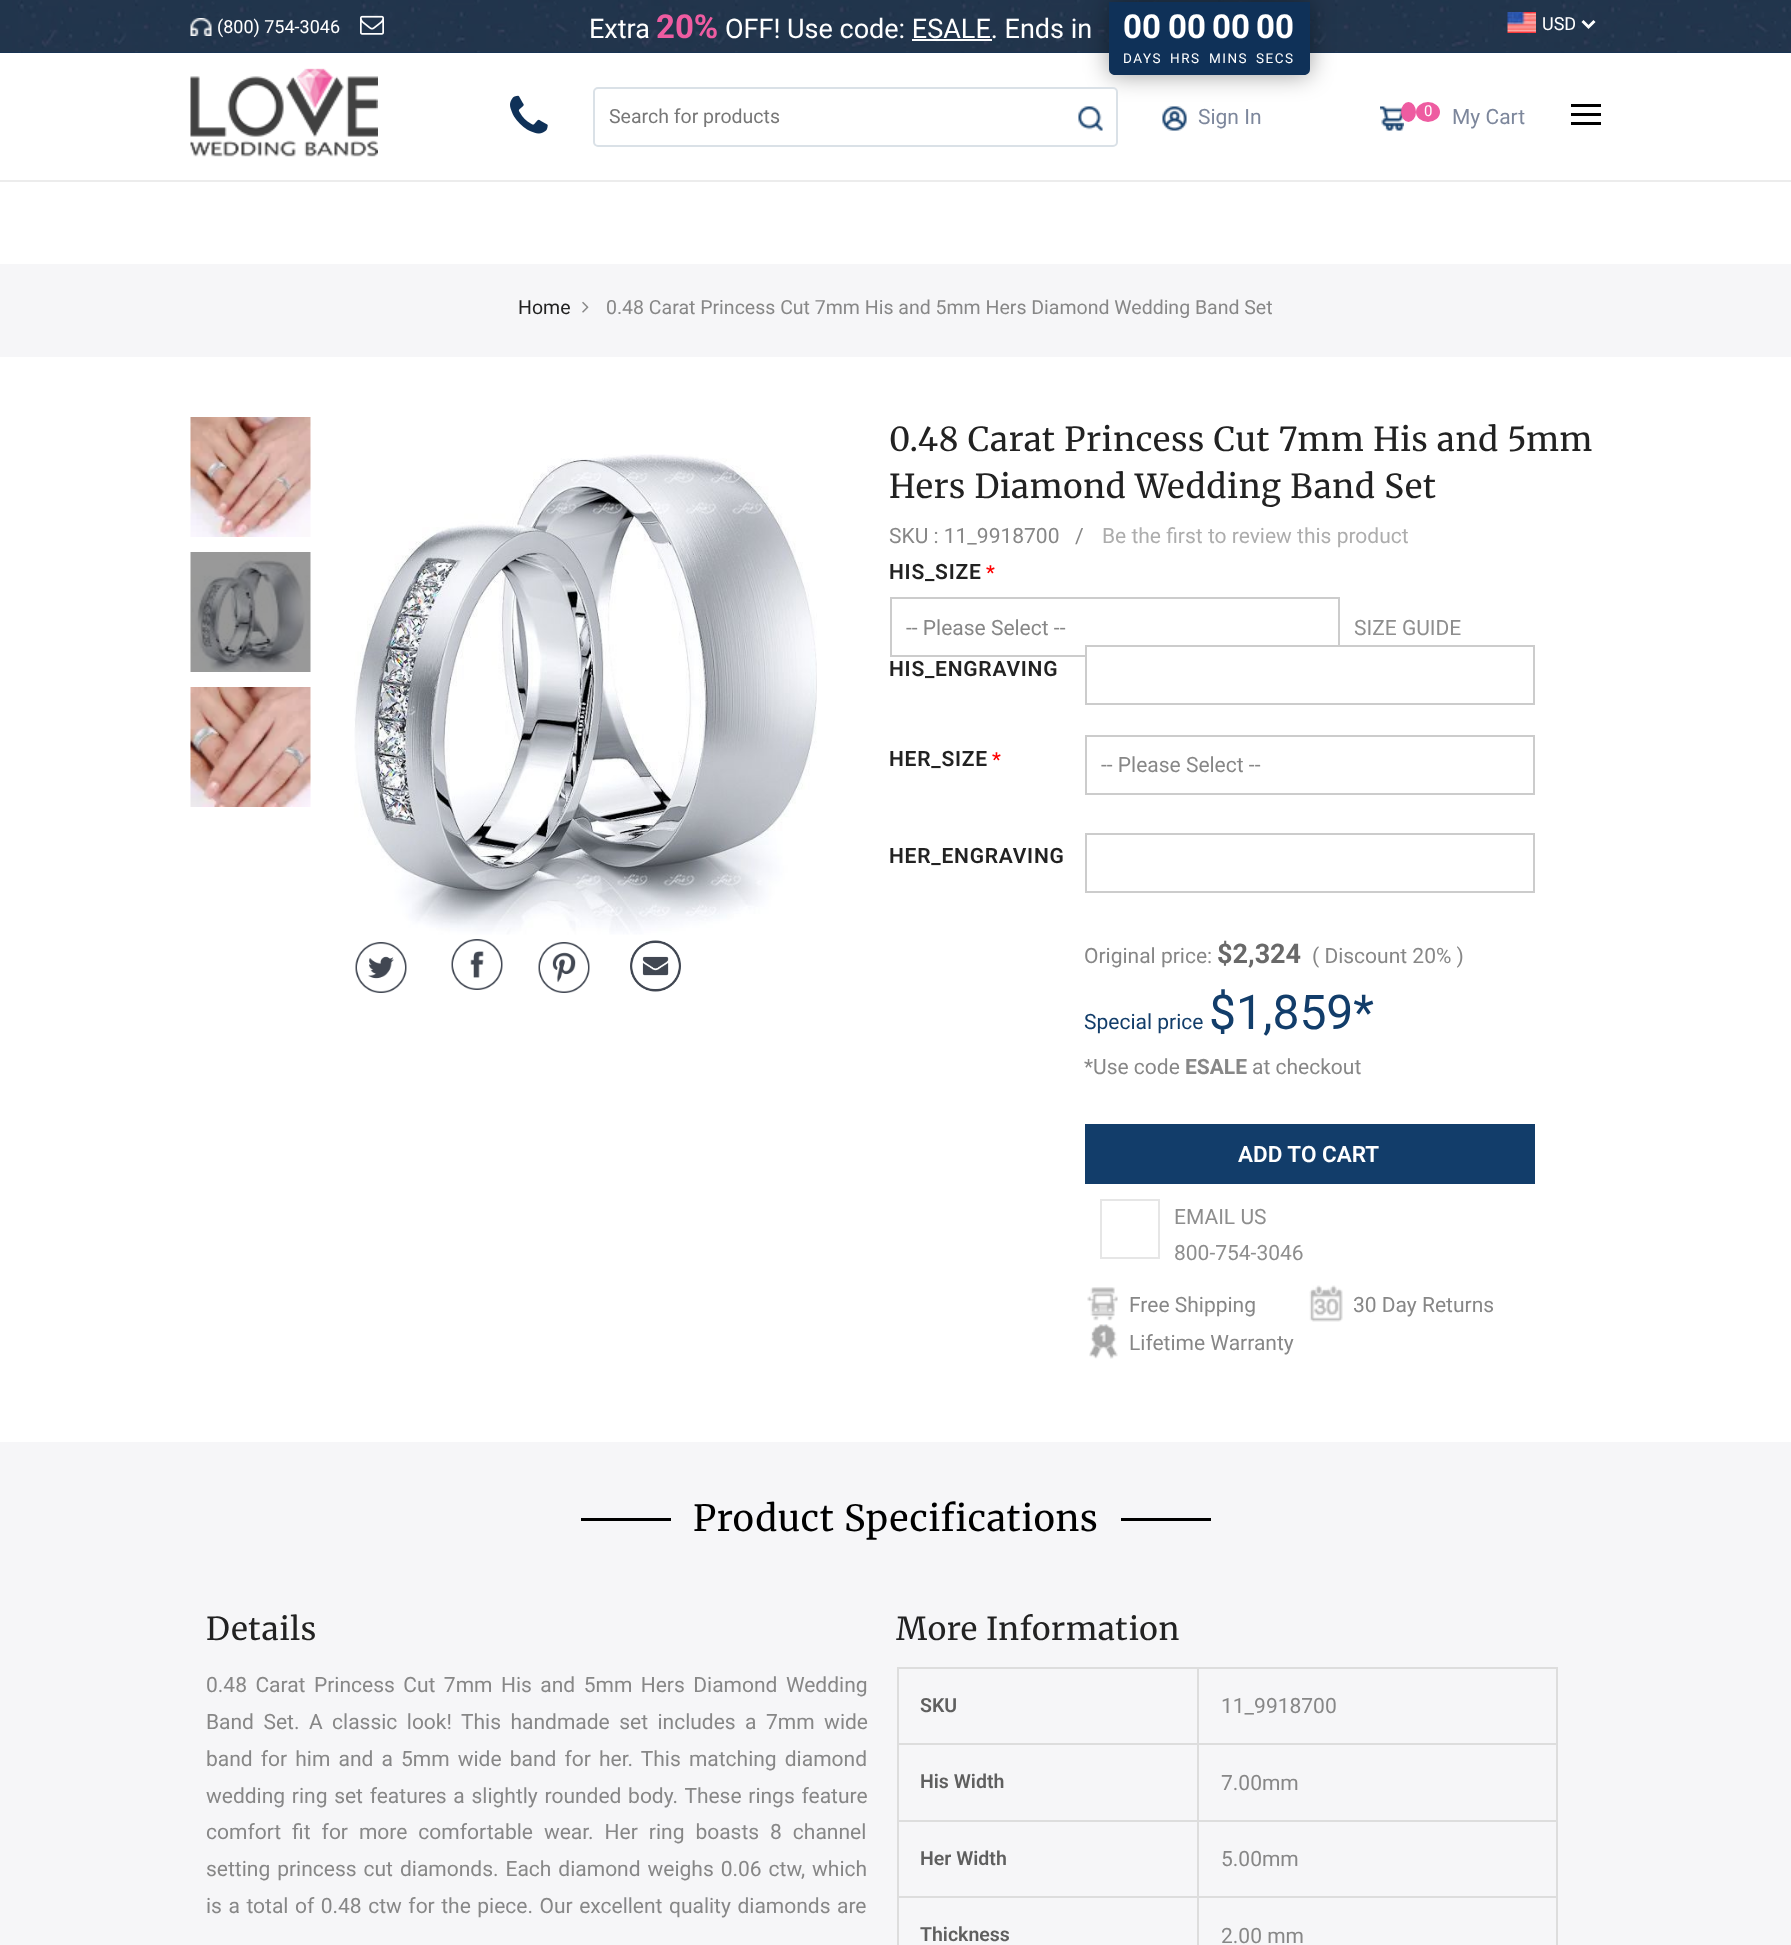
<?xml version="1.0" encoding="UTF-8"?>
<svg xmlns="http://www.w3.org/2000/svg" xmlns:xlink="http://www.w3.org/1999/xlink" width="1791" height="1945">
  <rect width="100%" height="100%" fill="#ffffff" />
  <rect width="1791" height="53" fill="#0f3158" />
  <image x="0" y="0" width="1791" height="53" xlink:href="image1.png" />
  <image x="190" y="18" width="22" height="18" xlink:href="image2.png" />
  <image x="360" y="15" width="24" height="20" xlink:href="image3.png" />
  <rect x="1109" y="2" width="201" height="73" rx="6" fill="#000000" fill-opacity="0.39" filter="blur(12px)" />
  <path d="M 1109 2 h 201 v 67 c 0 3.5 -2.5 6 -6 6 h -189 c -3.5 0 -6 -2.5 -6 -6 z" fill="#0f3158" />
  <rect x="912" y="39" width="80" height="2" fill="#ffffff" />
  <image x="1507" y="12" width="29" height="21" xlink:href="image4.png" />
  <path d="M 1582.5 21 l 6 6 l 6 -6" fill="none" stroke="#ffffff" stroke-width="3" />
  <image x="190" y="68" width="188" height="89" xlink:href="image5.png" />
  <image x="510" y="95" width="38" height="39" xlink:href="image6.png" />
  <rect x="594" y="88" width="523" height="58" rx="4" fill="#ffffff" stroke="#dae1e7" stroke-width="2" />
  <image x="1078" y="106" width="25" height="25" xlink:href="image7.png" />
  <image x="1162" y="106" width="25" height="25" xlink:href="image8.png" />
  <image x="1380" y="106" width="24" height="25" xlink:href="image9.png" />
  <ellipse cx="1408.5" cy="112" rx="7.5" ry="10" fill="#ee5ca1" />
  <ellipse cx="1428" cy="112" rx="12" ry="10" fill="#ee5ca1" />
  <rect x="1571" y="104" width="30" height="3" fill="#000000" />
  <rect x="1571" y="113" width="30" height="3" fill="#000000" />
  <rect x="1571" y="122" width="30" height="3" fill="#000000" />
  <rect y="180" width="1791" height="2" fill="#ececec" />
  <rect y="264" width="1791" height="93" fill="#f6f6f8" />
  <image x="582" y="301" width="7" height="12" xlink:href="image10.png" />
  <image x="190" y="417" width="121" height="120" xlink:href="image11.png" />
  <image x="190" y="552" width="121" height="120" xlink:href="image12.png" />
  <image x="190" y="687" width="121" height="120" xlink:href="image13.png" />
  <image x="354" y="454" width="463" height="481" xlink:href="image14.png" />
  <image x="355" y="942" width="52" height="51" xlink:href="image15.png" />
  <image x="451" y="939" width="52" height="51" xlink:href="image16.png" />
  <image x="538" y="942" width="52" height="51" xlink:href="image17.png" />
  <image x="630" y="940" width="51" height="52" xlink:href="image18.png" />
  <rect x="891" y="598" width="448" height="58" fill="none" stroke="#cccccc" stroke-width="2" />
  <rect x="1087" y="647" width="253" height="10" fill="#ffffff" />
  <rect x="1086" y="646" width="448" height="58" fill="none" stroke="#cccccc" stroke-width="2" />
  <rect x="1086" y="736" width="448" height="58" fill="none" stroke="#cccccc" stroke-width="2" />
  <rect x="1086" y="834" width="448" height="58" fill="none" stroke="#cccccc" stroke-width="2" />
  <rect x="1085" y="1124" width="450" height="60" fill="#123d6a" />
  <rect x="1101" y="1200" width="58" height="58" fill="none" stroke="#e6e6e6" stroke-width="2" />
  <image x="1087" y="1287" width="31" height="34" xlink:href="image19.png" />
  <image x="1309" y="1285" width="34" height="37" xlink:href="image20.png" />
  <image x="1089" y="1324" width="29" height="35" xlink:href="image21.png" />
  <rect y="1442" width="1791" height="503" fill="#f6f6f8" />
  <rect x="581" y="1518" width="90" height="3" fill="#000000" />
  <rect x="1121" y="1518" width="90" height="3" fill="#000000" />
  <rect x="1197" y="1667" width="360" height="2" fill="#dddddd" />
  <rect x="1197" y="1743" width="360" height="2" fill="#dddddd" />
  <rect x="1197" y="1820" width="360" height="2" fill="#dddddd" />
  <rect x="1197" y="1896" width="360" height="2" fill="#dddddd" />
  <rect x="1197" y="1896" width="2" height="49" fill="#dddddd" />
  <rect x="897" y="1896" width="302" height="2" fill="#dddddd" />
  <rect x="1197" y="1820" width="2" height="78" fill="#dddddd" />
  <rect x="897" y="1820" width="302" height="2" fill="#dddddd" />
  <rect x="1197" y="1743" width="2" height="78" fill="#dddddd" />
  <rect x="897" y="1743" width="302" height="2" fill="#dddddd" />
  <rect x="1197" y="1667" width="2" height="78" fill="#dddddd" />
  <rect x="897" y="1667" width="302" height="2" fill="#dddddd" />
  <rect x="897" y="1896" width="2" height="49" fill="#dddddd" />
  <rect x="897" y="1820" width="2" height="78" fill="#dddddd" />
  <rect x="897" y="1743" width="2" height="78" fill="#dddddd" />
  <rect x="897" y="1667" width="2" height="78" fill="#dddddd" />
  <rect x="1556" y="1896" width="2" height="49" fill="#dddddd" />
  <rect x="1556" y="1820" width="2" height="78" fill="#dddddd" />
  <rect x="1556" y="1743" width="2" height="78" fill="#dddddd" />
  <rect x="1556" y="1667" width="2" height="78" fill="#dddddd" />
  <text x="217" y="33" style="font-family: Roboto; font-size: 18px; fill: #ffffff">(800) 754-3046</text>
  <text x="589" y="38" style="font-family: Roboto; font-size: 27px; fill: #ffffff">Extra</text>
  <text x="656" y="38" style="font-family: Roboto; font-size: 33px; font-weight: bold; fill: #ee5ca1">20%</text>
  <text x="725" y="38" style="font-family: Roboto; font-size: 27px; fill: #ffffff">OFF! Use code: ESALE. Ends in</text>
  <text x="1123" y="38" style="font-family: Roboto; font-size: 33px; font-weight: bold; fill: #ffffff">00</text>
  <text x="1168" y="38" style="font-family: Roboto; font-size: 33px; font-weight: bold; fill: #ffffff">00</text>
  <text x="1212" y="38" style="font-family: Roboto; font-size: 33px; font-weight: bold; fill: #ffffff">00</text>
  <text x="1256" y="38" style="font-family: Roboto; font-size: 33px; font-weight: bold; fill: #ffffff">00</text>
  <text x="1123" y="63" style="font-family: Roboto; font-size: 13.5px; letter-spacing: 1.5px; fill: #ffffff">DAYS</text>
  <text x="1170" y="63" style="font-family: Roboto; font-size: 13.5px; letter-spacing: 1.5px; fill: #ffffff">HRS</text>
  <text x="1209" y="63" style="font-family: Roboto; font-size: 13.5px; letter-spacing: 1.5px; fill: #ffffff">MINS</text>
  <text x="1256" y="63" style="font-family: Roboto; font-size: 13.5px; letter-spacing: 1.5px; fill: #ffffff">SECS</text>
  <text x="1542" y="30" style="font-family: Roboto; font-size: 18px; fill: #ffffff">USD</text>
  <text x="609" y="123" style="font-family: Roboto; font-size: 19.5px; fill: #777777">Search for products</text>
  <text x="1198" y="124" style="font-family: Roboto; font-size: 21px; fill: #7d879c">Sign In</text>
  <text x="1424" y="116" style="font-family: Roboto; font-size: 15px; fill: #ffffff">0</text>
  <text x="1452" y="124" style="font-family: Roboto; font-size: 21px; fill: #7d879c">My Cart</text>
  <text x="518" y="314" style="font-family: Roboto; font-size: 19.5px; fill: #222222">Home</text>
  <text x="606" y="314" style="font-family: Roboto; font-size: 19.5px; fill: #878787">0.48 Carat Princess Cut 7mm His and 5mm Hers Diamond Wedding Band Set</text>
  <text x="889" y="451" style="font-family: Merriweather; font-size: 33px; letter-spacing: 0.75px; fill: #222222">0.48 Carat Princess Cut 7mm His and 5mm</text>
  <text x="889" y="498" style="font-family: Merriweather; font-size: 33px; letter-spacing: 0.75px; fill: #222222">Hers Diamond Wedding Band Set</text>
  <text x="889" y="543" style="font-family: Roboto; font-size: 21px; fill: #878787">SKU : 11_9918700</text>
  <text x="1075" y="543" style="font-family: Roboto; font-size: 21px; fill: #878787">/</text>
  <text x="1102" y="543" style="font-family: Roboto; font-size: 21px; fill: #adadad">Be the first to review this product</text>
  <text x="889" y="579" style="font-family: Roboto; font-size: 21px; font-weight: 600; letter-spacing: 0.75px; fill: #222222">HIS_SIZE</text>
  <text x="986" y="579" style="font-family: Roboto; font-size: 19.5px; font-weight: 600; letter-spacing: 0.75px; fill: #ff0000">*</text>
  <text x="906" y="635" style="font-family: Roboto; font-size: 21px; fill: #878787">-- Please Select --</text>
  <text x="1354" y="635" style="font-family: Roboto; font-size: 21px; fill: #8e8e8e">SIZE GUIDE</text>
  <text x="889" y="676" style="font-family: Roboto; font-size: 21px; font-weight: 600; letter-spacing: 0.75px; fill: #222222">HIS_ENGRAVING</text>
  <text x="889" y="766" style="font-family: Roboto; font-size: 21px; font-weight: 600; letter-spacing: 0.75px; fill: #222222">HER_SIZE</text>
  <text x="992" y="766" style="font-family: Roboto; font-size: 19.5px; font-weight: 600; letter-spacing: 0.75px; fill: #ff0000">*</text>
  <text x="1101" y="772" style="font-family: Roboto; font-size: 21px; fill: #878787">-- Please Select --</text>
  <text x="889" y="863" style="font-family: Roboto; font-size: 21px; font-weight: 600; letter-spacing: 0.75px; fill: #222222">HER_ENGRAVING</text>
  <text x="1084" y="963" style="font-family: Roboto; font-size: 21px; fill: #878787">Original price:</text>
  <text x="1217" y="963" style="font-family: Roboto; font-size: 27px; font-weight: bold; fill: #696969">$2,324</text>
  <text x="1312" y="963" style="font-family: Roboto; font-size: 21px; fill: #878787">( Discount 20% )</text>
  <text x="1084" y="1029" style="font-family: Roboto; font-size: 21px; fill: #123d6a">Special price</text>
  <text x="1209" y="1029" style="font-family: Roboto; font-size: 48px; fill: #123d6a">$1,859*</text>
  <text x="1084" y="1074" style="font-family: Roboto; font-size: 21px; fill: #878787">*Use code</text>
  <text x="1185" y="1074" style="font-family: Roboto; font-size: 21px; font-weight: bold; fill: #878787">ESALE</text>
  <text x="1252" y="1074" style="font-family: Roboto; font-size: 21px; fill: #878787">at checkout</text>
  <text x="1238" y="1162" style="font-family: Roboto; font-size: 22.5px; font-weight: 600; fill: #ffffff">ADD TO CART</text>
  <text x="1174" y="1224" style="font-family: Roboto; font-size: 21px; fill: #8e8e8e">EMAIL US</text>
  <text x="1174" y="1260" style="font-family: Roboto; font-size: 21px; fill: #8e8e8e">800-754-3046</text>
  <text x="1129" y="1312" style="font-family: Roboto; font-size: 21px; fill: #878787">Free Shipping</text>
  <text x="1353" y="1312" style="font-family: Roboto; font-size: 21px; fill: #878787">30 Day Returns</text>
  <text x="1129" y="1350" style="font-family: Roboto; font-size: 21px; fill: #878787">Lifetime Warranty</text>
  <text x="693" y="1531" style="font-family: Merriweather; font-size: 36px; letter-spacing: 0.75px; fill: #000000">Product Specifications</text>
  <text x="206" y="1640" style="font-family: Merriweather; font-size: 31.5px; letter-spacing: 0.75px; fill: #222222">Details</text>
  <text x="206" y="1692" word-spacing="3.25" style="font-family: Roboto; font-size: 21px; fill: #878787">0.48 Carat Princess Cut 7mm His and 5mm Hers Diamond Wedding</text>
  <text x="206" y="1729" word-spacing="4.25" style="font-family: Roboto; font-size: 21px; fill: #878787">Band Set. A classic look! This handmade set includes a 7mm wide</text>
  <text x="206" y="1766" word-spacing="2.9" style="font-family: Roboto; font-size: 21px; fill: #878787">band for him and a 5mm wide band for her. This matching diamond</text>
  <text x="206" y="1803" word-spacing="1.5" style="font-family: Roboto; font-size: 21px; fill: #878787">wedding ring set features a slightly rounded body. These rings feature</text>
  <text x="206" y="1839" word-spacing="5.75" style="font-family: Roboto; font-size: 21px; fill: #878787">comfort fit for more comfortable wear. Her ring boasts 8 channel</text>
  <text x="206" y="1876" word-spacing="1.75" style="font-family: Roboto; font-size: 21px; fill: #878787">setting princess cut diamonds. Each diamond weighs 0.06 ctw, which</text>
  <text x="206" y="1913" word-spacing="1.3" style="font-family: Roboto; font-size: 21px; fill: #878787">is a total of 0.48 ctw for the piece. Our excellent quality diamonds are</text>
  <text x="896" y="1640" style="font-family: Merriweather; font-size: 31.5px; letter-spacing: 0.75px; fill: #222222">More Information</text>
  <text x="920" y="1712" style="font-family: Roboto; font-size: 19.5px; font-weight: 600; fill: #5f5f5f">SKU</text>
  <text x="1221" y="1713" style="font-family: Roboto; font-size: 21px; fill: #878787">11_9918700</text>
  <text x="920" y="1788" style="font-family: Roboto; font-size: 19.5px; font-weight: 600; fill: #5f5f5f">His Width</text>
  <text x="1221" y="1790" style="font-family: Roboto; font-size: 21px; fill: #878787">7.00mm</text>
  <text x="920" y="1865" style="font-family: Roboto; font-size: 19.5px; font-weight: 600; fill: #5f5f5f">Her Width</text>
  <text x="1221" y="1866" style="font-family: Roboto; font-size: 21px; fill: #878787">5.00mm</text>
  <text x="920" y="1941" style="font-family: Roboto; font-size: 19.5px; font-weight: 600; fill: #5f5f5f">Thickness</text>
  <text x="1221" y="1943" style="font-family: Roboto; font-size: 21px; fill: #878787">2.00 mm</text>
</svg>
